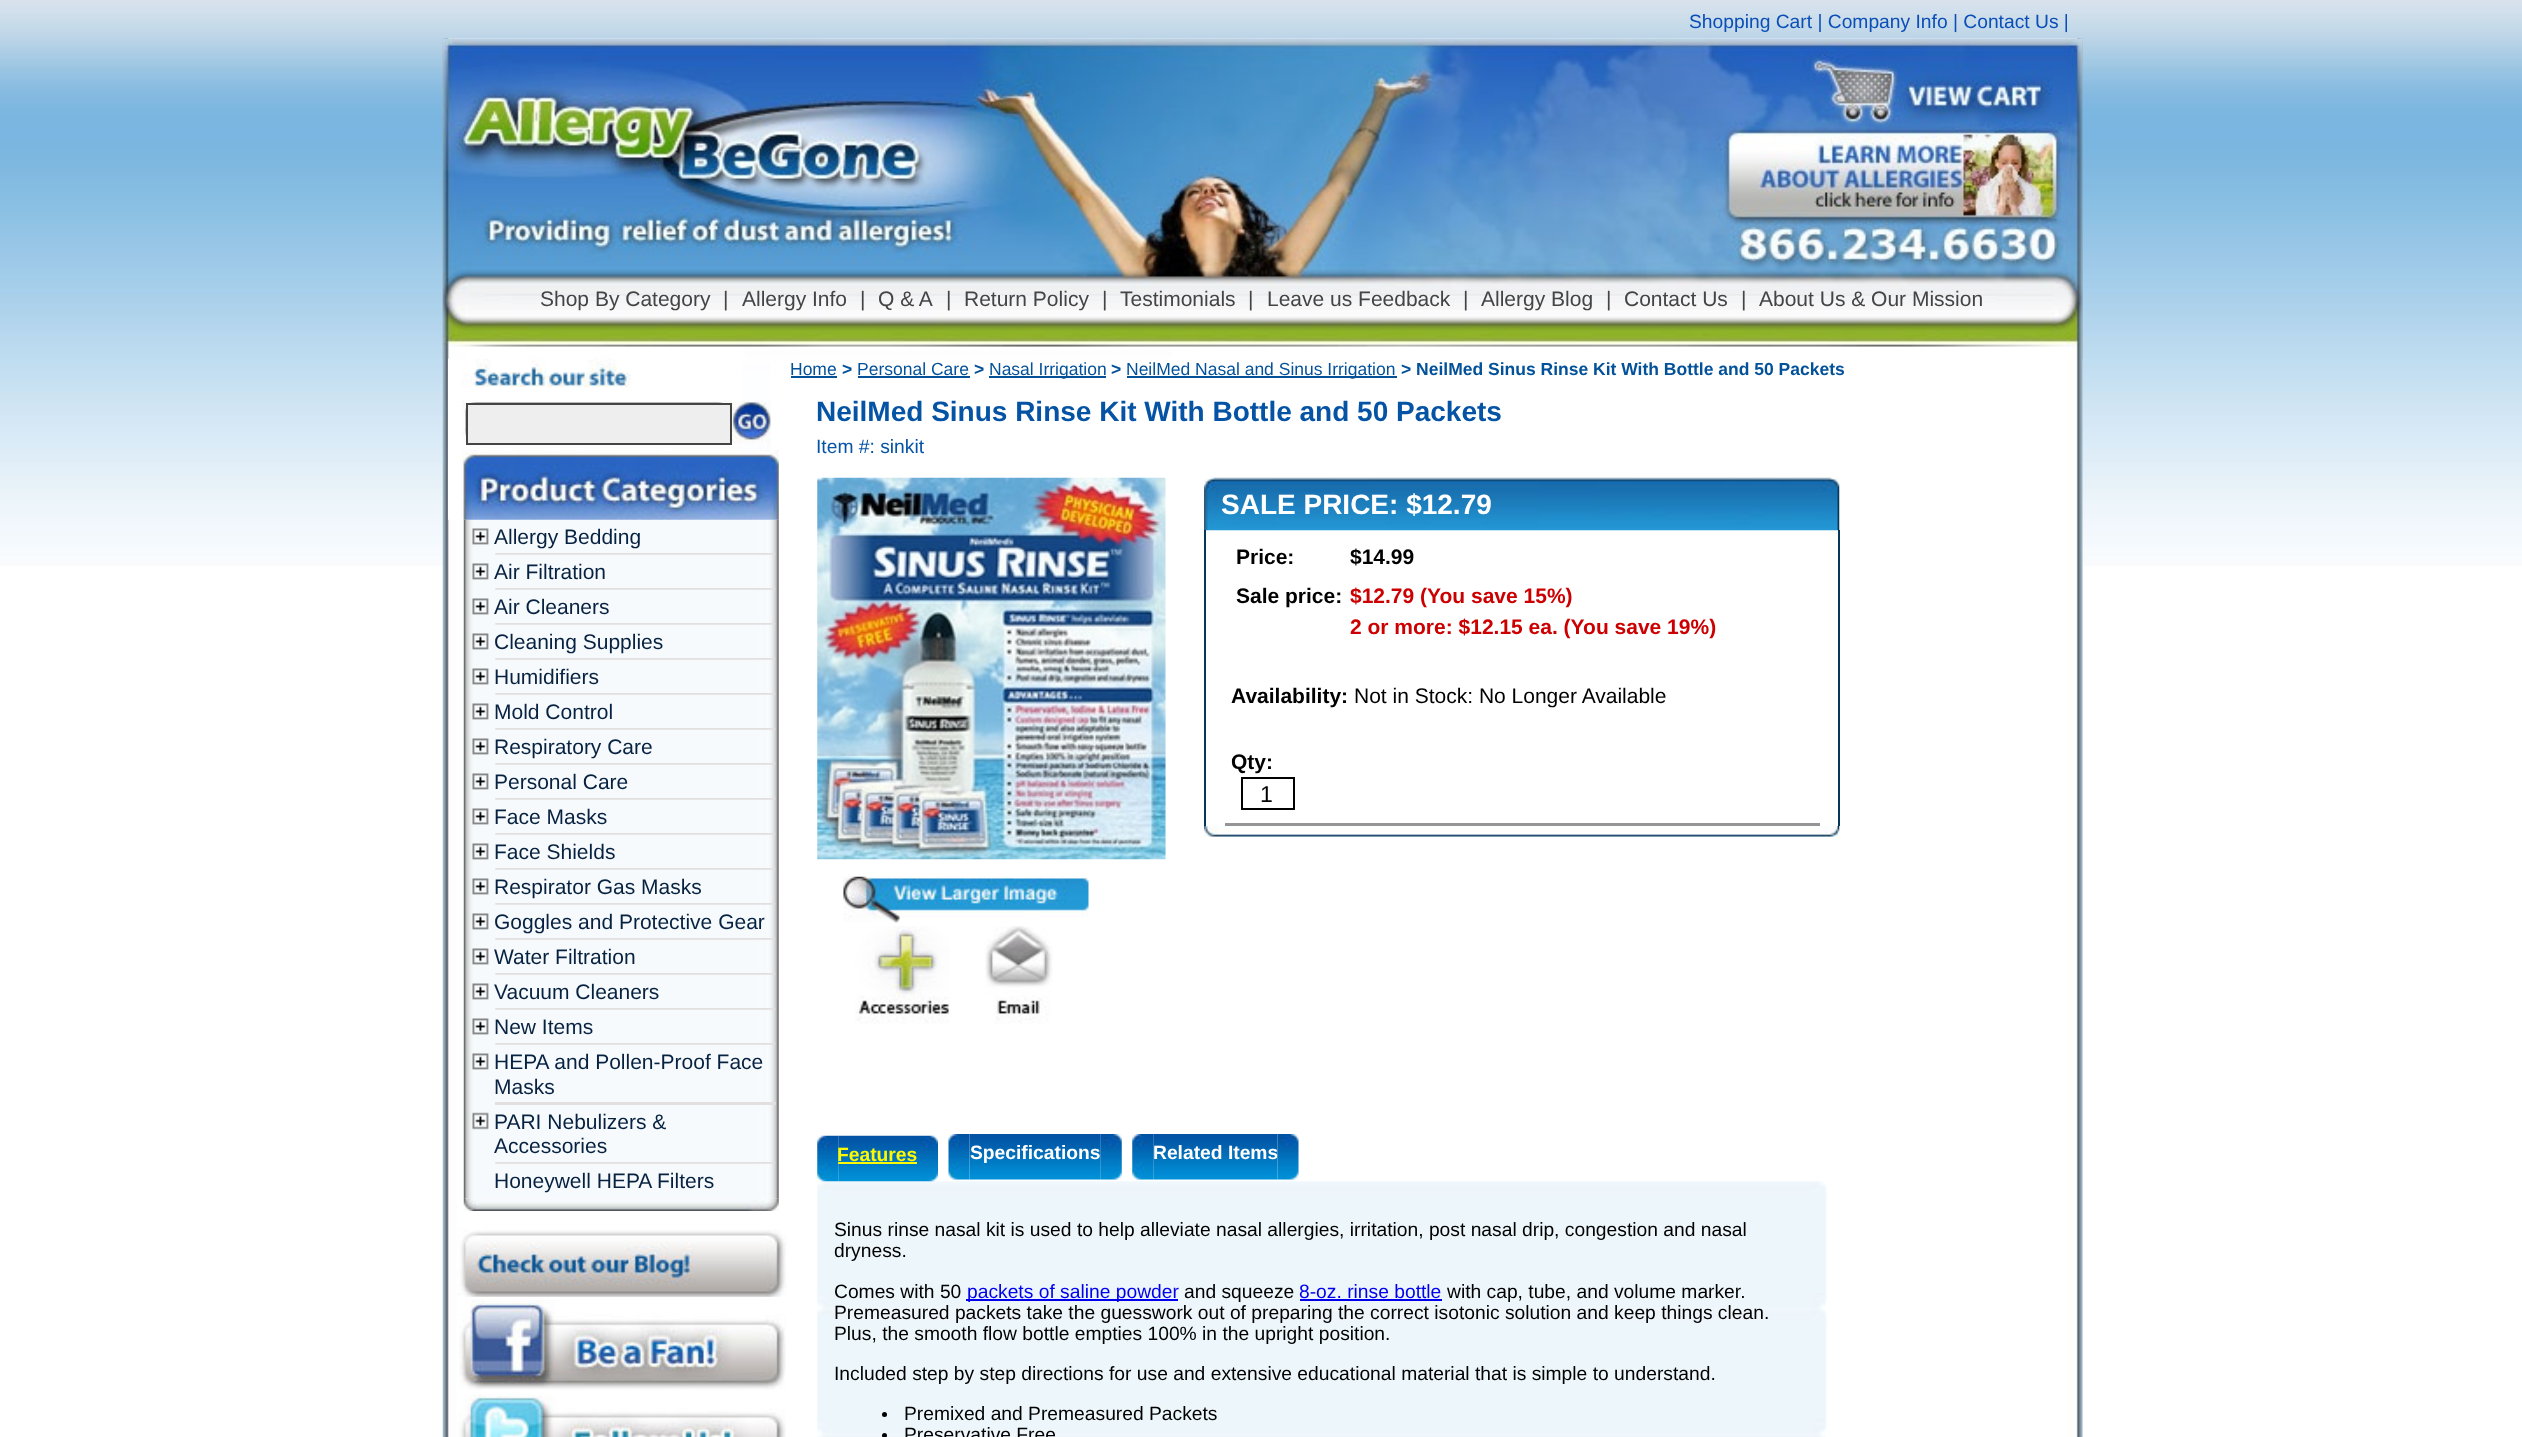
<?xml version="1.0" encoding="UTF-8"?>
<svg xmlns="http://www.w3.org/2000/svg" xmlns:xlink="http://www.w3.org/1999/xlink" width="2522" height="1437">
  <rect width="100%" height="100%" fill="#ffffff" />
  <image x="0" y="0" width="2522" height="566" xlink:href="image1.png" />
  <image x="442" y="38" width="1641" height="1399" xlink:href="image2.png" />
  <image x="442" y="38" width="1641" height="321" xlink:href="image3.png" />
  <image x="463" y="519" width="316" height="680" xlink:href="image6.png" />
  <image x="448" y="449" width="331" height="71" xlink:href="image5.png" />
  <image x="448" y="358" width="323" height="92" xlink:href="image4.png" />
  <rect x="467" y="404" width="264" height="40" fill="#eeeeee" stroke="#444444" stroke-width="2" />
  <image x="495" y="553" width="281" height="2" xlink:href="image7.png" />
  <image x="472" y="528" width="17" height="17" xlink:href="image8.png" />
  <image x="495" y="588" width="281" height="2" xlink:href="image7.png" />
  <image x="472" y="563" width="17" height="17" xlink:href="image8.png" />
  <image x="495" y="623" width="281" height="2" xlink:href="image7.png" />
  <image x="472" y="598" width="17" height="17" xlink:href="image8.png" />
  <image x="495" y="658" width="281" height="2" xlink:href="image7.png" />
  <image x="472" y="633" width="17" height="17" xlink:href="image8.png" />
  <image x="495" y="693" width="281" height="2" xlink:href="image7.png" />
  <image x="472" y="668" width="17" height="17" xlink:href="image8.png" />
  <image x="495" y="728" width="281" height="2" xlink:href="image7.png" />
  <image x="472" y="703" width="17" height="17" xlink:href="image8.png" />
  <image x="495" y="763" width="281" height="2" xlink:href="image7.png" />
  <image x="472" y="738" width="17" height="17" xlink:href="image8.png" />
  <image x="495" y="798" width="281" height="2" xlink:href="image7.png" />
  <image x="472" y="773" width="17" height="17" xlink:href="image8.png" />
  <image x="495" y="833" width="281" height="2" xlink:href="image7.png" />
  <image x="472" y="808" width="17" height="17" xlink:href="image8.png" />
  <image x="495" y="868" width="281" height="2" xlink:href="image7.png" />
  <image x="472" y="843" width="17" height="17" xlink:href="image8.png" />
  <image x="495" y="903" width="281" height="2" xlink:href="image7.png" />
  <image x="472" y="878" width="17" height="17" xlink:href="image8.png" />
  <image x="495" y="938" width="281" height="2" xlink:href="image7.png" />
  <image x="472" y="913" width="17" height="17" xlink:href="image8.png" />
  <image x="495" y="973" width="281" height="2" xlink:href="image7.png" />
  <image x="472" y="948" width="17" height="17" xlink:href="image8.png" />
  <image x="495" y="1008" width="281" height="2" xlink:href="image7.png" />
  <image x="472" y="983" width="17" height="17" xlink:href="image8.png" />
  <image x="495" y="1043" width="281" height="2" xlink:href="image7.png" />
  <image x="472" y="1018" width="17" height="17" xlink:href="image8.png" />
  <rect x="495" y="1102" width="281" height="3" fill="#e1dfe0" />
  <image x="472" y="1053" width="17" height="17" xlink:href="image8.png" />
  <image x="495" y="1162" width="281" height="2" xlink:href="image7.png" />
  <image x="472" y="1112" width="17" height="18" xlink:href="image9.png" />
  <image x="463" y="1198" width="316" height="13" xlink:href="image10.png" />
  <image x="457" y="1229" width="330" height="68" xlink:href="image11.png" />
  <image x="459" y="1300" width="327" height="90" xlink:href="image12.png" />
  <image x="458" y="1394" width="328" height="43" xlink:href="image13.png" />
  <rect x="791" y="376" width="46" height="2" fill="#035199" />
  <rect x="858" y="376" width="112" height="2" fill="#035199" />
  <rect x="989" y="376" width="117" height="2" fill="#035199" />
  <rect x="1127" y="376" width="270" height="2" fill="#035199" />
  <image x="817" y="477" width="349" height="383" xlink:href="image14.png" />
  <image x="843" y="876" width="246" height="47" xlink:href="image15.png" />
  <image x="855" y="926" width="95" height="98" xlink:href="image16.png" />
  <image x="985" y="926" width="68" height="98" xlink:href="image17.png" />
  <image x="1204" y="477" width="636" height="54" xlink:href="image18.png" />
  <rect x="1838" y="530" width="2" height="296" fill="#05375c" />
  <rect x="1204" y="530" width="2" height="296" fill="#05375c" />
  <rect x="1242" y="778" width="52" height="31" fill="none" stroke="#000000" stroke-width="2" />
  <rect x="1225" y="823" width="595" height="3" fill="#959595" />
  <image x="1204" y="826" width="636" height="11" xlink:href="image19.png" />
  <image x="817" y="1181" width="1010" height="256" xlink:href="image29.png" />
  <image x="817" y="1135" width="22" height="47" xlink:href="image20.png" />
  <image x="838" y="1135" width="79" height="47" xlink:href="image21.png" />
  <rect x="838" y="1162" width="79" height="2" fill="#fcf903" />
  <image x="917" y="1135" width="21" height="47" xlink:href="image22.png" />
  <image x="948" y="1134" width="22" height="46" xlink:href="image23.png" />
  <image x="969" y="1134" width="132" height="46" xlink:href="image24.png" />
  <image x="1100" y="1134" width="22" height="46" xlink:href="image25.png" />
  <image x="1132" y="1134" width="22" height="46" xlink:href="image26.png" />
  <image x="1153" y="1134" width="125" height="46" xlink:href="image27.png" />
  <rect x="966" y="1299" width="212" height="2" fill="#0000ee" />
  <rect x="1300" y="1299" width="142" height="2" fill="#0000ee" />
  <circle cx="884.5" cy="1414.5" r="2.5" fill="#000000" />
  <circle cx="884.5" cy="1435.5" r="2.5" fill="#000000" />
  <text x="1689" y="28" style="font-family: Liberation Sans; font-size: 19.25px; fill: #0b4eb8">Shopping Cart | Company Info | Contact Us |</text>
  <text x="540" y="306" style="font-family: Liberation Sans; font-size: 21px; fill: #444444">Shop By Category</text>
  <text x="723" y="306" style="font-family: Liberation Sans; font-size: 21px; fill: #444444">|</text>
  <text x="742" y="306" style="font-family: Liberation Sans; font-size: 21px; fill: #444444">Allergy Info</text>
  <text x="860" y="306" style="font-family: Liberation Sans; font-size: 21px; fill: #444444">|</text>
  <text x="878" y="306" style="font-family: Liberation Sans; font-size: 21px; fill: #444444">Q &amp; A</text>
  <text x="946" y="306" style="font-family: Liberation Sans; font-size: 21px; fill: #444444">|</text>
  <text x="964" y="306" style="font-family: Liberation Sans; font-size: 21px; fill: #444444">Return Policy</text>
  <text x="1102" y="306" style="font-family: Liberation Sans; font-size: 21px; fill: #444444">|</text>
  <text x="1120" y="306" style="font-family: Liberation Sans; font-size: 21px; fill: #444444">Testimonials</text>
  <text x="1248" y="306" style="font-family: Liberation Sans; font-size: 21px; fill: #444444">|</text>
  <text x="1267" y="306" style="font-family: Liberation Sans; font-size: 21px; fill: #444444">Leave us Feedback</text>
  <text x="1463" y="306" style="font-family: Liberation Sans; font-size: 21px; fill: #444444">|</text>
  <text x="1481" y="306" style="font-family: Liberation Sans; font-size: 21px; fill: #444444">Allergy Blog</text>
  <text x="1606" y="306" style="font-family: Liberation Sans; font-size: 21px; fill: #444444">|</text>
  <text x="1624" y="306" style="font-family: Liberation Sans; font-size: 21px; fill: #444444">Contact Us</text>
  <text x="1741" y="306" style="font-family: Liberation Sans; font-size: 21px; fill: #444444">|</text>
  <text x="1759" y="306" style="font-family: Liberation Sans; font-size: 21px; fill: #444444">About Us &amp; Our Mission</text>
  <text x="494" y="544" style="font-family: Liberation Sans; font-size: 21px; fill: #072240">Allergy Bedding</text>
  <text x="494" y="579" style="font-family: Liberation Sans; font-size: 21px; fill: #072240">Air Filtration</text>
  <text x="494" y="614" style="font-family: Liberation Sans; font-size: 21px; fill: #072240">Air Cleaners</text>
  <text x="494" y="649" style="font-family: Liberation Sans; font-size: 21px; fill: #072240">Cleaning Supplies</text>
  <text x="494" y="684" style="font-family: Liberation Sans; font-size: 21px; fill: #072240">Humidifiers</text>
  <text x="494" y="719" style="font-family: Liberation Sans; font-size: 21px; fill: #072240">Mold Control</text>
  <text x="494" y="754" style="font-family: Liberation Sans; font-size: 21px; fill: #072240">Respiratory Care</text>
  <text x="494" y="789" style="font-family: Liberation Sans; font-size: 21px; fill: #072240">Personal Care</text>
  <text x="494" y="824" style="font-family: Liberation Sans; font-size: 21px; fill: #072240">Face Masks</text>
  <text x="494" y="859" style="font-family: Liberation Sans; font-size: 21px; fill: #072240">Face Shields</text>
  <text x="494" y="894" style="font-family: Liberation Sans; font-size: 21px; fill: #072240">Respirator Gas Masks</text>
  <text x="494" y="929" style="font-family: Liberation Sans; font-size: 21px; fill: #072240">Goggles and Protective Gear</text>
  <text x="494" y="964" style="font-family: Liberation Sans; font-size: 21px; fill: #072240">Water Filtration</text>
  <text x="494" y="999" style="font-family: Liberation Sans; font-size: 21px; fill: #072240">Vacuum Cleaners</text>
  <text x="494" y="1034" style="font-family: Liberation Sans; font-size: 21px; fill: #072240">New Items</text>
  <text x="494" y="1069" style="font-family: Liberation Sans; font-size: 21px; fill: #072240">HEPA and Pollen-Proof Face</text>
  <text x="494" y="1094" style="font-family: Liberation Sans; font-size: 21px; fill: #072240">Masks</text>
  <text x="494" y="1129" style="font-family: Liberation Sans; font-size: 21px; fill: #072240">PARI Nebulizers &amp;</text>
  <text x="494" y="1153" style="font-family: Liberation Sans; font-size: 21px; fill: #072240">Accessories</text>
  <text x="494" y="1188" style="font-family: Liberation Sans; font-size: 21px; fill: #072240">Honeywell HEPA Filters</text>
  <text x="790" y="375" style="font-family: Liberation Sans; font-size: 17.5px; fill: #035199">Home</text>
  <text x="842" y="375" style="font-family: Liberation Sans; font-size: 17.5px; font-weight: bold; fill: #035199">&gt;</text>
  <text x="857" y="375" style="font-family: Liberation Sans; font-size: 17.5px; fill: #035199">Personal Care</text>
  <text x="974" y="375" style="font-family: Liberation Sans; font-size: 17.5px; font-weight: bold; fill: #035199">&gt;</text>
  <text x="989" y="375" style="font-family: Liberation Sans; font-size: 17.5px; fill: #035199">Nasal Irrigation</text>
  <text x="1111" y="375" style="font-family: Liberation Sans; font-size: 17.5px; font-weight: bold; fill: #035199">&gt;</text>
  <text x="1126" y="375" style="font-family: Liberation Sans; font-size: 17.5px; fill: #035199">NeilMed Nasal and Sinus Irrigation</text>
  <text x="1401" y="375" style="font-family: Liberation Sans; font-size: 17.5px; font-weight: bold; fill: #035199">&gt; NeilMed Sinus Rinse Kit With Bottle and 50 Packets</text>
  <text x="816" y="421" style="font-family: Liberation Sans; font-size: 28px; font-weight: bold; fill: #0553a5">NeilMed Sinus Rinse Kit With Bottle and 50 Packets</text>
  <text x="816" y="453" style="font-family: Liberation Sans; font-size: 19.25px; fill: #0553a5">Item #: sinkit</text>
  <text x="1221" y="514" style="font-family: Liberation Sans; font-size: 28px; font-weight: bold; fill: #ffffff">SALE PRICE: $12.79</text>
  <text x="1236" y="564" style="font-family: Liberation Sans; font-size: 21px; font-weight: bold; fill: #000000">Price:</text>
  <text x="1350" y="564" style="font-family: Liberation Sans; font-size: 21px; font-weight: bold; fill: #000000">$14.99</text>
  <text x="1236" y="603" style="font-family: Liberation Sans; font-size: 21px; font-weight: bold; fill: #000000">Sale price:</text>
  <text x="1350" y="603" style="font-family: Liberation Sans; font-size: 21px; font-weight: bold; fill: #cc0000">$12.79 (You save 15%)</text>
  <text x="1350" y="634" style="font-family: Liberation Sans; font-size: 21px; font-weight: bold; fill: #cc0000">2 or more: $12.15 ea. (You save 19%)</text>
  <text x="1231" y="703" style="font-family: Liberation Sans; font-size: 21px; font-weight: bold; fill: #000000">Availability:</text>
  <text x="1354" y="703" style="font-family: Liberation Sans; font-size: 21px; fill: #000000">Not in Stock: No Longer Available</text>
  <text x="1231" y="769" style="font-family: Liberation Sans; font-size: 21px; font-weight: bold; fill: #000000">Qty:</text>
  <text x="1260" y="802" style="font-family: Liberation Sans; font-size: 23px; fill: #000000">1</text>
  <text x="837" y="1161" style="font-family: Liberation Sans; font-size: 19.25px; font-weight: bold; fill: #fcf903">Features</text>
  <text x="970" y="1159" style="font-family: Liberation Sans; font-size: 19.25px; font-weight: bold; fill: #ffffff">Specifications</text>
  <text x="1153" y="1159" style="font-family: Liberation Sans; font-size: 19.25px; font-weight: bold; fill: #ffffff">Related Items</text>
  <image x="1277" y="1134" width="22" height="46" xlink:href="image28.png" />
  <text x="834" y="1236" style="font-family: Liberation Sans; font-size: 19.25px; fill: #000000">Sinus rinse nasal kit is used to help alleviate nasal allergies, irritation, post nasal drip, congestion and nasal</text>
  <text x="834" y="1257" style="font-family: Liberation Sans; font-size: 19.25px; fill: #000000">dryness.</text>
  <text x="834" y="1298" style="font-family: Liberation Sans; font-size: 19.25px; fill: #000000">Comes with 50</text>
  <text x="967" y="1298" style="font-family: Liberation Sans; font-size: 19.25px; fill: #0000ee">packets of saline powder</text>
  <text x="1184" y="1298" style="font-family: Liberation Sans; font-size: 19.25px; fill: #000000">and squeeze</text>
  <text x="1299" y="1298" style="font-family: Liberation Sans; font-size: 19.25px; fill: #0000ee">8-oz. rinse bottle</text>
  <text x="1447" y="1298" style="font-family: Liberation Sans; font-size: 19.25px; fill: #000000">with cap, tube, and volume marker.</text>
  <text x="834" y="1319" style="font-family: Liberation Sans; font-size: 19.25px; fill: #000000">Premeasured packets take the guesswork out of preparing the correct isotonic solution and keep things clean.</text>
  <text x="834" y="1340" style="font-family: Liberation Sans; font-size: 19.25px; fill: #000000">Plus, the smooth flow bottle empties 100% in the upright position.</text>
  <text x="834" y="1380" style="font-family: Liberation Sans; font-size: 19.25px; fill: #000000">Included step by step directions for use and extensive educational material that is simple to understand.</text>
  <text x="904" y="1420" style="font-family: Liberation Sans; font-size: 19.25px; fill: #000000">Premixed and Premeasured Packets</text>
  <text x="904" y="1441" style="font-family: Liberation Sans; font-size: 19.25px; fill: #000000">Preservative Free</text>
</svg>
